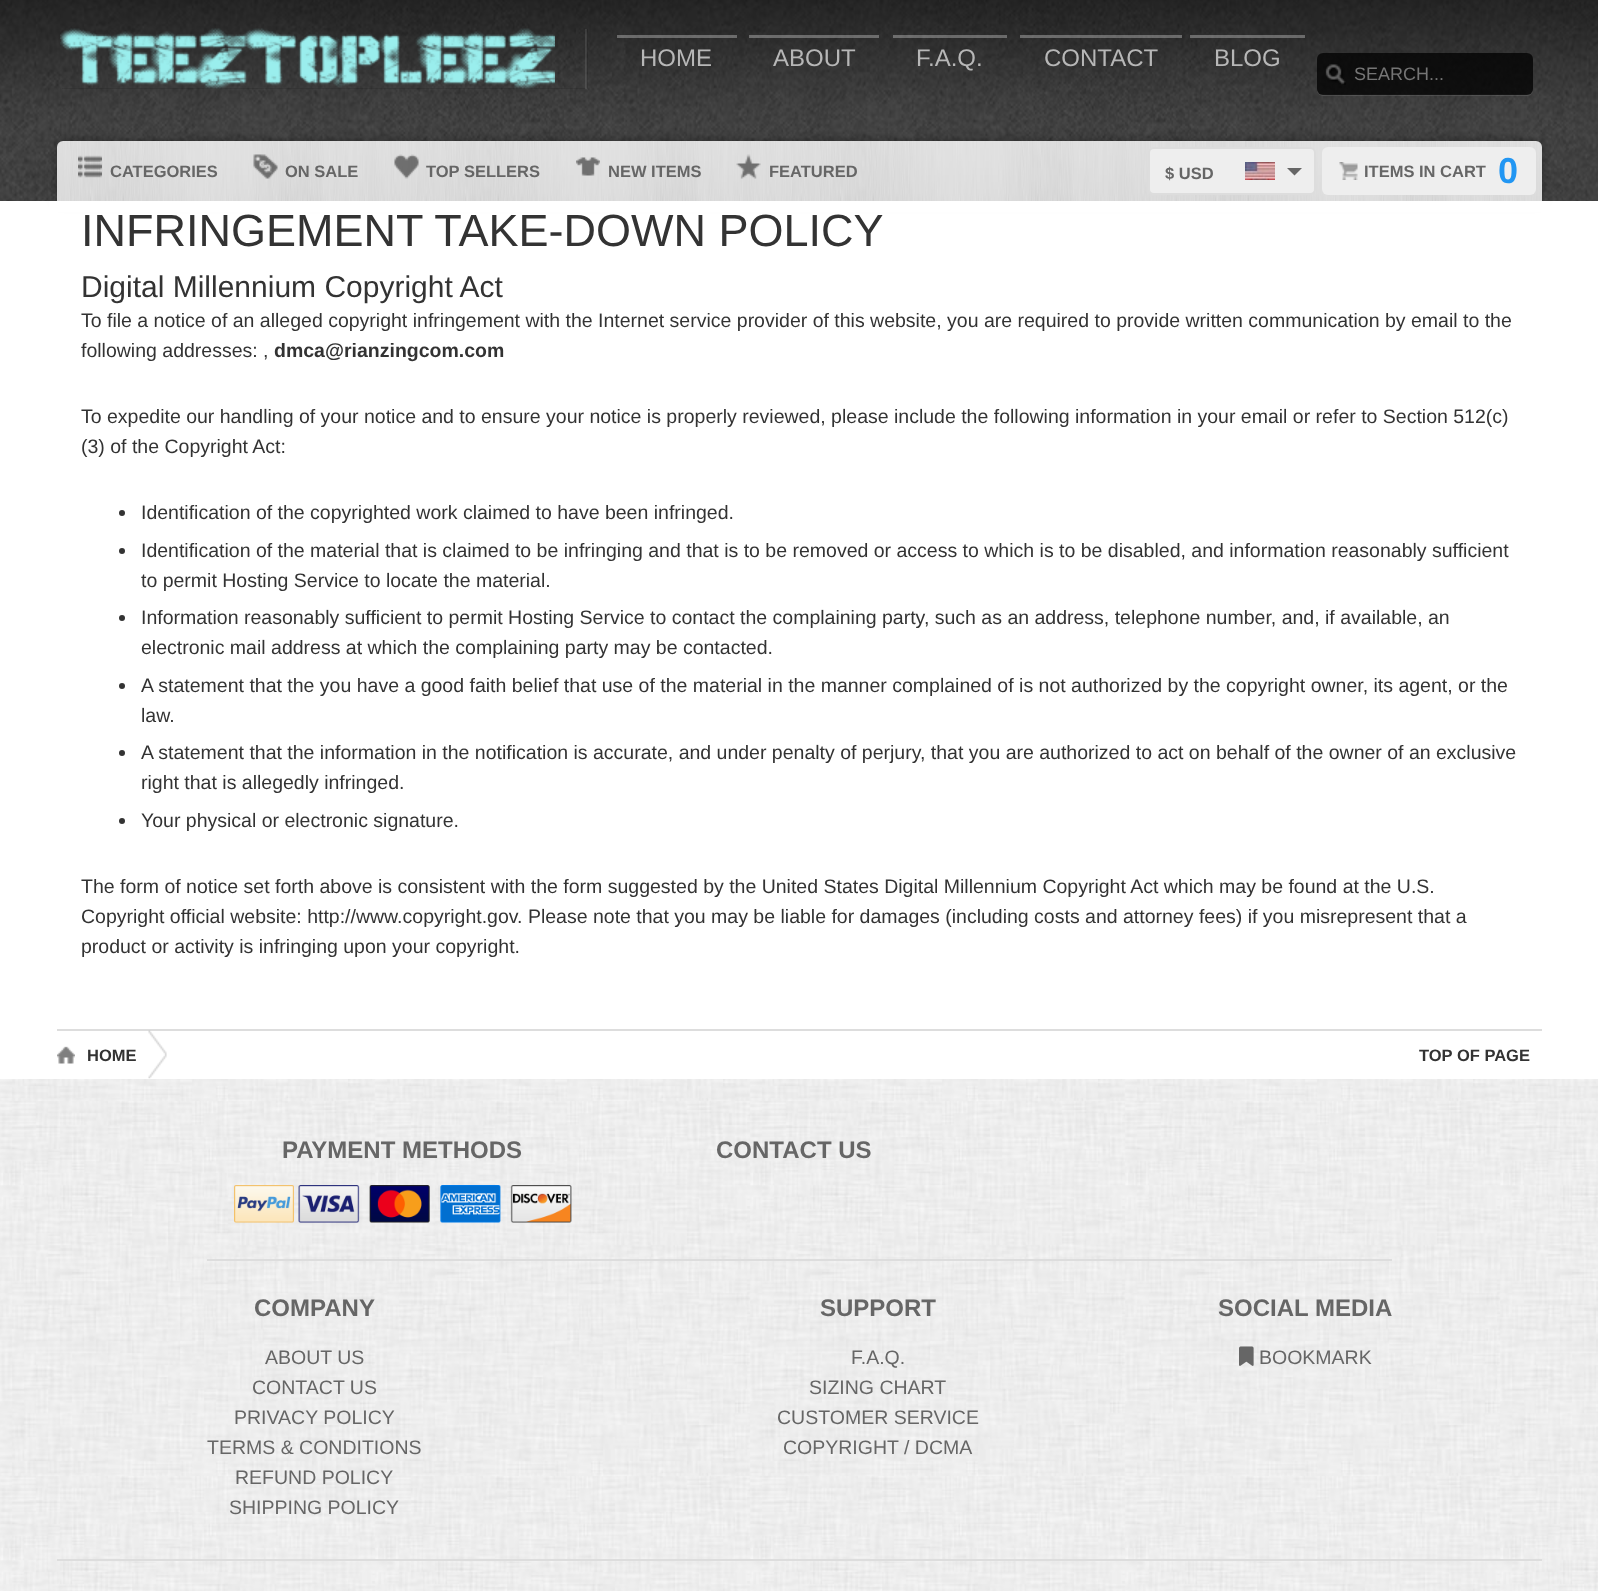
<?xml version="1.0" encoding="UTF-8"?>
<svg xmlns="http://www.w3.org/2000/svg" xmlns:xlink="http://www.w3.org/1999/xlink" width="1598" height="1591">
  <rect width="100%" height="100%" fill="#ffffff" />
  <image x="0" y="1079" width="1598" height="512" xlink:href="image1.png" />
  <image x="0" y="0" width="1598" height="201" xlink:href="image2.png" />
  <path d="M 62 88 v 1 h 526 v -60 h -2 v 59 z" fill="#000000" fill-opacity="0.1" />
  <rect x="585" y="29" width="2" height="60" fill="#ffffff" fill-opacity="0.1" />
  <image x="60" y="28" width="495" height="61" xlink:href="image3.png" />
  <rect x="617" y="35" width="120" height="3" fill="#ffffff" fill-opacity="0.3" />
  <rect x="749" y="35" width="130" height="3" fill="#ffffff" fill-opacity="0.3" />
  <rect x="893" y="35" width="114" height="3" fill="#ffffff" fill-opacity="0.3" />
  <rect x="1020" y="35" width="162" height="3" fill="#ffffff" fill-opacity="0.3" />
  <rect x="1190" y="35" width="115" height="3" fill="#ffffff" fill-opacity="0.3" />
  <path d="M 1317 88 v 2 c 0 3 3 6 6 6 h 204 c 3 0 6 -3 6 -6 v -2 c 0 4 -3 6 -6 6 h -204 c -3 0 -6 -2 -6 -6 z" fill="#ffffff" fill-opacity="0.1" />
  <rect x="1317" y="53" width="216" height="42" rx="6" fill="#000000" fill-opacity="0.75" />
  <image x="1325" y="64" width="21" height="21" xlink:href="image4.png" />
  <rect x="57" y="141" width="1485" height="60" rx="6" fill="#000000" fill-opacity="0.35" filter="blur(6px)" />
  <image x="57" y="141" width="1485" height="60" xlink:href="image5.png" />
  <image x="78" y="155" width="24" height="23" xlink:href="image6.png" />
  <image x="253" y="154" width="25" height="25" xlink:href="image7.png" />
  <image x="394" y="154" width="25" height="25" xlink:href="image8.png" />
  <image x="576" y="157" width="24" height="19" xlink:href="image9.png" />
  <image x="736" y="154" width="25" height="25" xlink:href="image10.png" />
  <rect x="1149" y="148" width="166" height="46" rx="5" fill="#eeeeee" stroke="#dddddd" stroke-width="2" />
  <image x="1245" y="162" width="30" height="18" xlink:href="image11.png" />
  <path d="M 1287 168 h 15 l -7.5 7.5 z" fill="#666666" />
  <rect x="1322" y="147" width="214" height="48" rx="6" fill="#eeeeee" />
  <image x="1339" y="162" width="19" height="18" xlink:href="image12.png" />
  <rect x="49" y="201" width="1501" height="11" fill="#ffffff" />
  <circle cx="122" cy="513" r="3" fill="#333333" />
  <circle cx="122" cy="551" r="3" fill="#333333" />
  <circle cx="122" cy="618" r="3" fill="#333333" />
  <circle cx="122" cy="686" r="3" fill="#333333" />
  <circle cx="122" cy="753" r="3" fill="#333333" />
  <circle cx="122" cy="821" r="3" fill="#333333" />
  <rect x="57" y="1029" width="1485" height="2" fill="#dddddd" />
  <image x="148" y="1030" width="19" height="49" xlink:href="image13.png" />
  <image x="57" y="1046" width="18" height="18" xlink:href="image14.png" />
  <image x="234" y="1185" width="60" height="38" xlink:href="image15.png" />
  <image x="298" y="1185" width="274" height="38" xlink:href="image16.png" />
  <rect x="207" y="1259" width="1185" height="2" fill="#dddddd" />
  <image x="1239" y="1346" width="15" height="20" xlink:href="image17.png" />
  <rect x="57" y="1559" width="1485" height="2" fill="#dddddd" />
  <text x="640" y="66" style="font-family: Liberation Sans; font-size: 24px; fill: #b7b7b7">HOME</text>
  <text x="773" y="66" style="font-family: Liberation Sans; font-size: 24px; fill: #b7b7b7">ABOUT</text>
  <text x="916" y="66" style="font-family: Liberation Sans; font-size: 24px; fill: #b7b7b7">F.A.Q.</text>
  <text x="1044" y="66" style="font-family: Liberation Sans; font-size: 24px; fill: #b7b7b7">CONTACT</text>
  <text x="1214" y="66" style="font-family: Liberation Sans; font-size: 24px; fill: #b7b7b7">BLOG</text>
  <text x="1354" y="80" style="font-family: Liberation Sans; font-size: 18px; fill: #757575">SEARCH...</text>
  <text x="110" y="177" style="font-family: Liberation Sans; font-size: 16.5px; font-weight: bold; fill: #666666">CATEGORIES</text>
  <text x="285" y="177" style="font-family: Liberation Sans; font-size: 16.5px; font-weight: bold; fill: #666666">ON SALE</text>
  <text x="426" y="177" style="font-family: Liberation Sans; font-size: 16.5px; font-weight: bold; fill: #666666">TOP SELLERS</text>
  <text x="608" y="177" style="font-family: Liberation Sans; font-size: 16.5px; font-weight: bold; fill: #666666">NEW ITEMS</text>
  <text x="769" y="177" style="font-family: Liberation Sans; font-size: 16.5px; font-weight: bold; fill: #666666">FEATURED</text>
  <text x="1165" y="179" style="font-family: Liberation Sans; font-size: 16.5px; font-weight: bold; fill: #666666">$ USD</text>
  <text x="1364" y="177" style="font-family: Liberation Sans; font-size: 16.5px; font-weight: bold; fill: #666666">ITEMS IN CART</text>
  <text x="1498" y="183" style="font-family: Liberation Sans; font-size: 36px; font-weight: bold; fill: #2196f3">0</text>
  <text x="81" y="246" style="font-family: Liberation Sans; font-size: 45px; fill: #333333">INFRINGEMENT TAKE-DOWN POLICY</text>
  <text x="81" y="297" style="font-family: Liberation Sans; font-size: 30px; fill: #333333">Digital Millennium Copyright Act</text>
  <text x="81" y="327" style="font-family: Liberation Sans; font-size: 19.5px; fill: #333333">To file a notice of an alleged copyright infringement with the Internet service provider of this website, you are required to provide written communication by email to the</text>
  <text x="81" y="357" style="font-family: Liberation Sans; font-size: 19.5px; fill: #333333">following addresses: ,</text>
  <text x="274" y="357" style="font-family: Liberation Sans; font-size: 19.5px; font-weight: bold; fill: #333333">dmca@rianzingcom.com</text>
  <text x="81" y="423" style="font-family: Liberation Sans; font-size: 19.5px; fill: #333333">To expedite our handling of your notice and to ensure your notice is properly reviewed, please include the following information in your email or refer to Section 512(c)</text>
  <text x="81" y="453" style="font-family: Liberation Sans; font-size: 19.5px; fill: #333333">(3) of the Copyright Act:</text>
  <text x="141" y="519" style="font-family: Liberation Sans; font-size: 19.5px; fill: #333333">Identification of the copyrighted work claimed to have been infringed.</text>
  <text x="141" y="557" style="font-family: Liberation Sans; font-size: 19.5px; fill: #333333">Identification of the material that is claimed to be infringing and that is to be removed or access to which is to be disabled, and information reasonably sufficient</text>
  <text x="141" y="587" style="font-family: Liberation Sans; font-size: 19.5px; fill: #333333">to permit Hosting Service to locate the material.</text>
  <text x="141" y="624" style="font-family: Liberation Sans; font-size: 19.5px; fill: #333333">Information reasonably sufficient to permit Hosting Service to contact the complaining party, such as an address, telephone number, and, if available, an</text>
  <text x="141" y="654" style="font-family: Liberation Sans; font-size: 19.5px; fill: #333333">electronic mail address at which the complaining party may be contacted.</text>
  <text x="141" y="692" style="font-family: Liberation Sans; font-size: 19.5px; fill: #333333">A statement that the you have a good faith belief that use of the material in the manner complained of is not authorized by the copyright owner, its agent, or the</text>
  <text x="141" y="722" style="font-family: Liberation Sans; font-size: 19.5px; fill: #333333">law.</text>
  <text x="141" y="759" style="font-family: Liberation Sans; font-size: 19.5px; fill: #333333">A statement that the information in the notification is accurate, and under penalty of perjury, that you are authorized to act on behalf of the owner of an exclusive</text>
  <text x="141" y="789" style="font-family: Liberation Sans; font-size: 19.5px; fill: #333333">right that is allegedly infringed.</text>
  <text x="141" y="827" style="font-family: Liberation Sans; font-size: 19.5px; fill: #333333">Your physical or electronic signature.</text>
  <text x="81" y="893" style="font-family: Liberation Sans; font-size: 19.5px; fill: #333333">The form of notice set forth above is consistent with the form suggested by the United States Digital Millennium Copyright Act which may be found at the U.S.</text>
  <text x="81" y="923" style="font-family: Liberation Sans; font-size: 19.5px; fill: #333333">Copyright official website: http://www.copyright.gov. Please note that you may be liable for damages (including costs and attorney fees) if you misrepresent that a</text>
  <text x="81" y="953" style="font-family: Liberation Sans; font-size: 19.5px; fill: #333333">product or activity is infringing upon your copyright.</text>
  <text x="87" y="1061" style="font-family: Liberation Sans; font-size: 16.5px; font-weight: bold; fill: #333333">HOME</text>
  <text x="1419" y="1061" style="font-family: Liberation Sans; font-size: 16.5px; font-weight: bold; fill: #333333">TOP OF PAGE</text>
  <text x="282" y="1158" style="font-family: Liberation Sans; font-size: 24px; font-weight: bold; fill: #666666">PAYMENT METHODS</text>
  <text x="716" y="1158" style="font-family: Liberation Sans; font-size: 24px; font-weight: bold; fill: #666666">CONTACT US</text>
  <text x="254" y="1316" style="font-family: Liberation Sans; font-size: 24px; font-weight: bold; fill: #666666">COMPANY</text>
  <text x="265" y="1364" style="font-family: Liberation Sans; font-size: 19.5px; fill: #666666">ABOUT US</text>
  <text x="252" y="1394" style="font-family: Liberation Sans; font-size: 19.5px; fill: #666666">CONTACT US</text>
  <text x="234" y="1424" style="font-family: Liberation Sans; font-size: 19.5px; fill: #666666">PRIVACY POLICY</text>
  <text x="207" y="1454" style="font-family: Liberation Sans; font-size: 19.5px; fill: #666666">TERMS &amp; CONDITIONS</text>
  <text x="235" y="1484" style="font-family: Liberation Sans; font-size: 19.5px; fill: #666666">REFUND POLICY</text>
  <text x="229" y="1514" style="font-family: Liberation Sans; font-size: 19.5px; fill: #666666">SHIPPING POLICY</text>
  <text x="820" y="1316" style="font-family: Liberation Sans; font-size: 24px; font-weight: bold; fill: #666666">SUPPORT</text>
  <text x="851" y="1364" style="font-family: Liberation Sans; font-size: 19.5px; fill: #666666">F.A.Q.</text>
  <text x="809" y="1394" style="font-family: Liberation Sans; font-size: 19.5px; fill: #666666">SIZING CHART</text>
  <text x="777" y="1424" style="font-family: Liberation Sans; font-size: 19.5px; fill: #666666">CUSTOMER SERVICE</text>
  <text x="783" y="1454" style="font-family: Liberation Sans; font-size: 19.5px; fill: #666666">COPYRIGHT / DCMA</text>
  <text x="1218" y="1316" style="font-family: Liberation Sans; font-size: 24px; font-weight: bold; fill: #666666">SOCIAL MEDIA</text>
  <text x="1259" y="1364" style="font-family: Liberation Sans; font-size: 19.5px; fill: #666666">BOOKMARK</text>
</svg>
